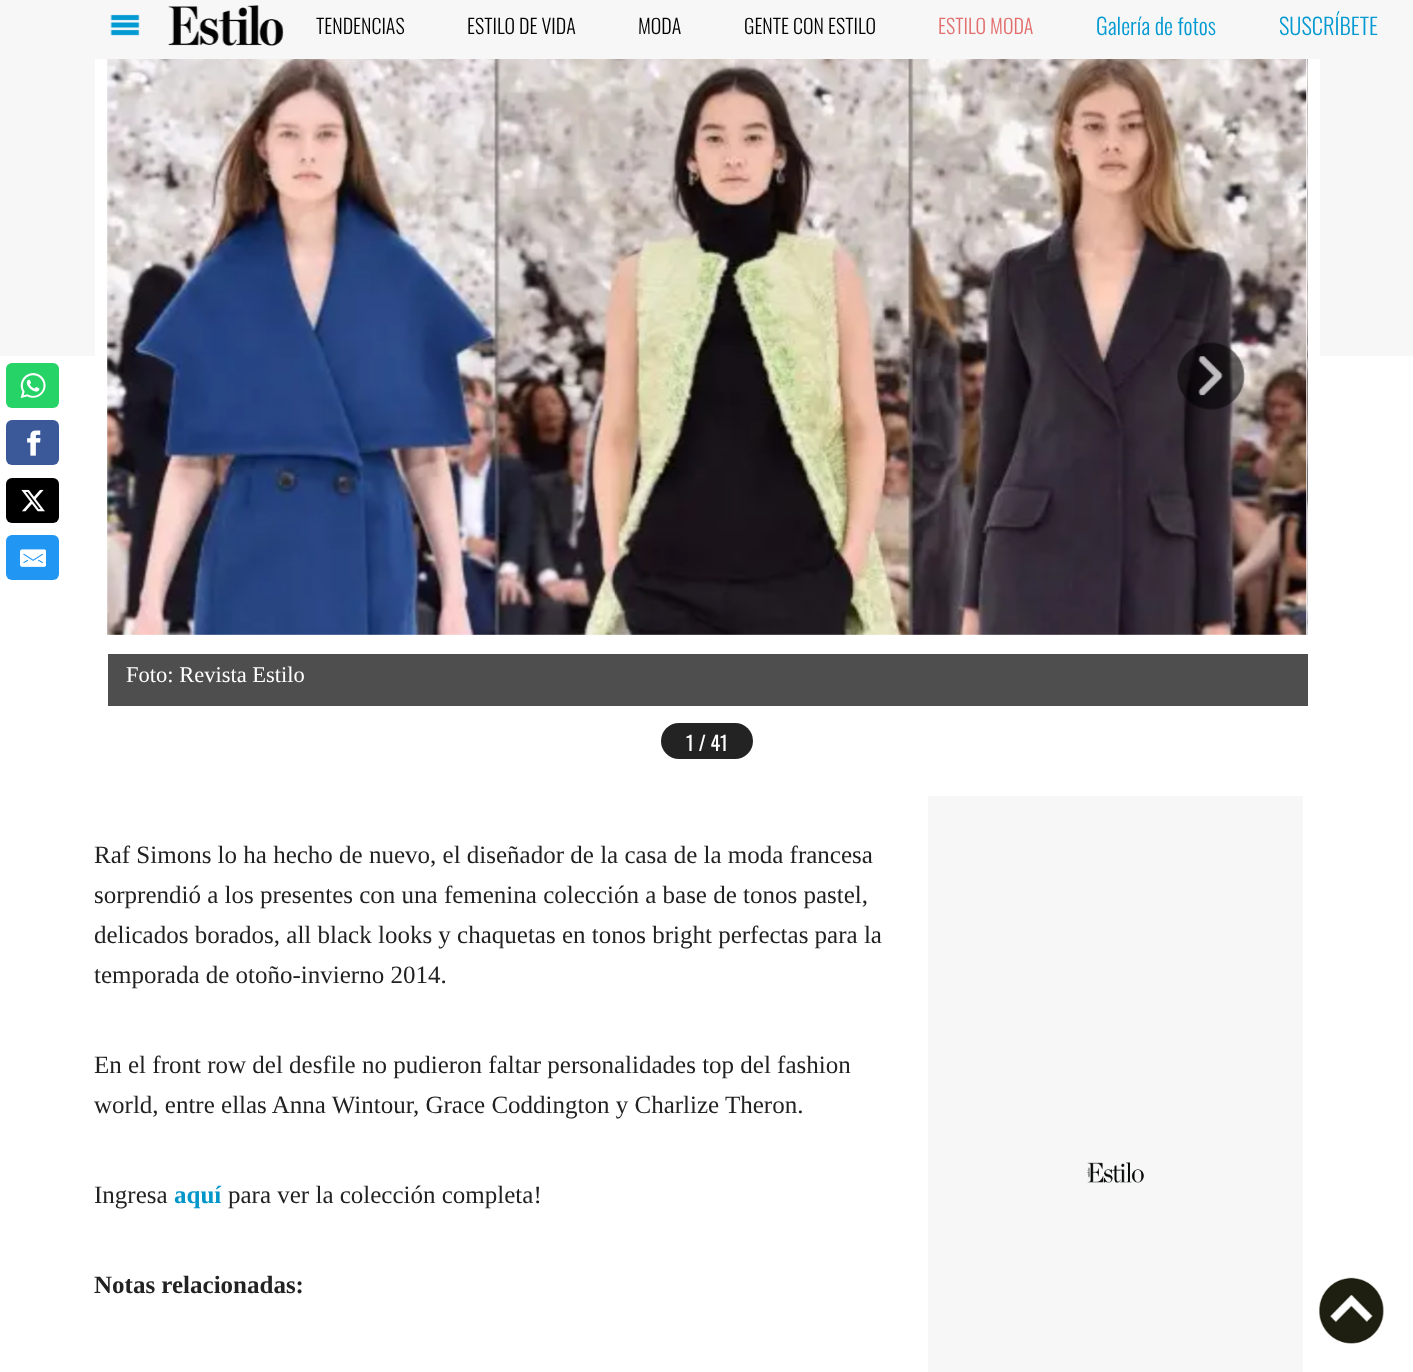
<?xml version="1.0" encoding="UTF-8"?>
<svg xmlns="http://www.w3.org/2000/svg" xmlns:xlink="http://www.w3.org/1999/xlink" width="1413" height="1372">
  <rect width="100%" height="100%" fill="#ffffff" />
  <rect width="1413" height="59" fill="#f7f7f7" />
  <image x="110" y="14" width="30" height="22" xlink:href="image1.png" />
  <image x="168" y="5" width="116" height="41" xlink:href="image2.png" />
  <rect y="59" width="95" height="297" fill="#f7f7f7" />
  <rect x="1320" y="59" width="93" height="297" fill="#f7f7f7" />
  <image x="107" y="59" width="1200" height="576" xlink:href="image5.png" />
  <image x="1177" y="342" width="68" height="68" xlink:href="image3.png" />
  <image x="1307" y="59" width="1" height="576" xlink:href="image4.png" />
  <rect x="108" y="654" width="1200" height="52" fill="#4e4e4e" />
  <rect x="661" y="723" width="92" height="36" rx="18" fill="#232323" />
  <rect x="6" y="363" width="53" height="45" rx="6" fill="#25d366" />
  <image x="20" y="373" width="26" height="25" xlink:href="image6.png" />
  <rect x="6" y="420" width="53" height="45" rx="6" fill="#3b5998" />
  <image x="27" y="430" width="14" height="26" xlink:href="image7.png" />
  <rect x="6" y="478" width="53" height="45" rx="6" fill="#000000" />
  <image x="21" y="489" width="24" height="23" xlink:href="image8.png" />
  <rect x="6" y="535" width="53" height="45" rx="6" fill="#2196f3" />
  <image x="20" y="549" width="26" height="18" xlink:href="image9.png" />
  <rect x="928" y="796" width="375" height="576" fill="#f7f7f7" />
  <image x="1087" y="1162" width="57" height="21" xlink:href="image10.png" />
  <image x="1318" y="1277" width="66" height="67" xlink:href="image11.png" />
  <text x="316" y="34" style="font-family: Oswald; font-size: 20px; font-weight: 300; fill: #000000">TENDENCIAS</text>
  <text x="467" y="34" style="font-family: Oswald; font-size: 20px; font-weight: 300; fill: #000000">ESTILO DE VIDA</text>
  <text x="638" y="34" style="font-family: Oswald; font-size: 20px; font-weight: 300; fill: #000000">MODA</text>
  <text x="744" y="34" style="font-family: Oswald; font-size: 20px; font-weight: 300; fill: #000000">GENTE CON ESTILO</text>
  <text x="938" y="34" style="font-family: Oswald; font-size: 20px; font-weight: 300; fill: #e26e6e">ESTILO MODA</text>
  <text x="1096" y="35" style="font-family: Oswald; font-size: 22.5px; font-weight: 300; fill: #0399d2">Galería de fotos</text>
  <text x="1279" y="35" style="font-family: Oswald; font-size: 22.5px; font-weight: 300; fill: #0399d2">SUSCRÍBETE</text>
  <text x="126" y="682" style="font-family: Liberation Serif; font-size: 22.5px; fill: #ffffff">Foto: Revista Estilo</text>
  <text x="686" y="751" style="font-family: Oswald; font-size: 20px; fill: #ffffff">1 / 41</text>
  <text x="94" y="863" style="font-family: Liberation Serif; font-size: 25px; fill: #222222">Raf Simons lo ha hecho de nuevo, el diseñador de la casa de la moda francesa</text>
  <text x="94" y="903" style="font-family: Liberation Serif; font-size: 25px; fill: #222222">sorprendió a los presentes con una femenina colección a base de tonos pastel,</text>
  <text x="94" y="943" style="font-family: Liberation Serif; font-size: 25px; fill: #222222">delicados borados, all black looks y chaquetas en tonos bright perfectas para la</text>
  <text x="94" y="983" style="font-family: Liberation Serif; font-size: 25px; fill: #222222">temporada de otoño-invierno 2014.</text>
  <text x="94" y="1073" style="font-family: Liberation Serif; font-size: 25px; fill: #222222">En el front row del desfile no pudieron faltar personalidades top del fashion</text>
  <text x="94" y="1113" style="font-family: Liberation Serif; font-size: 25px; fill: #222222">world, entre ellas Anna Wintour, Grace Coddington y Charlize Theron.</text>
  <text x="94" y="1203" style="font-family: Liberation Serif; font-size: 25px; fill: #222222">Ingresa</text>
  <text x="174" y="1203" style="font-family: Liberation Serif; font-size: 25px; font-weight: bold; fill: #0096c9">aquí</text>
  <text x="228" y="1203" style="font-family: Liberation Serif; font-size: 25px; fill: #222222">para ver la colección completa!</text>
  <text x="94" y="1293" style="font-family: Liberation Serif; font-size: 25px; font-weight: bold; fill: #222222">Notas relacionadas:</text>
</svg>
